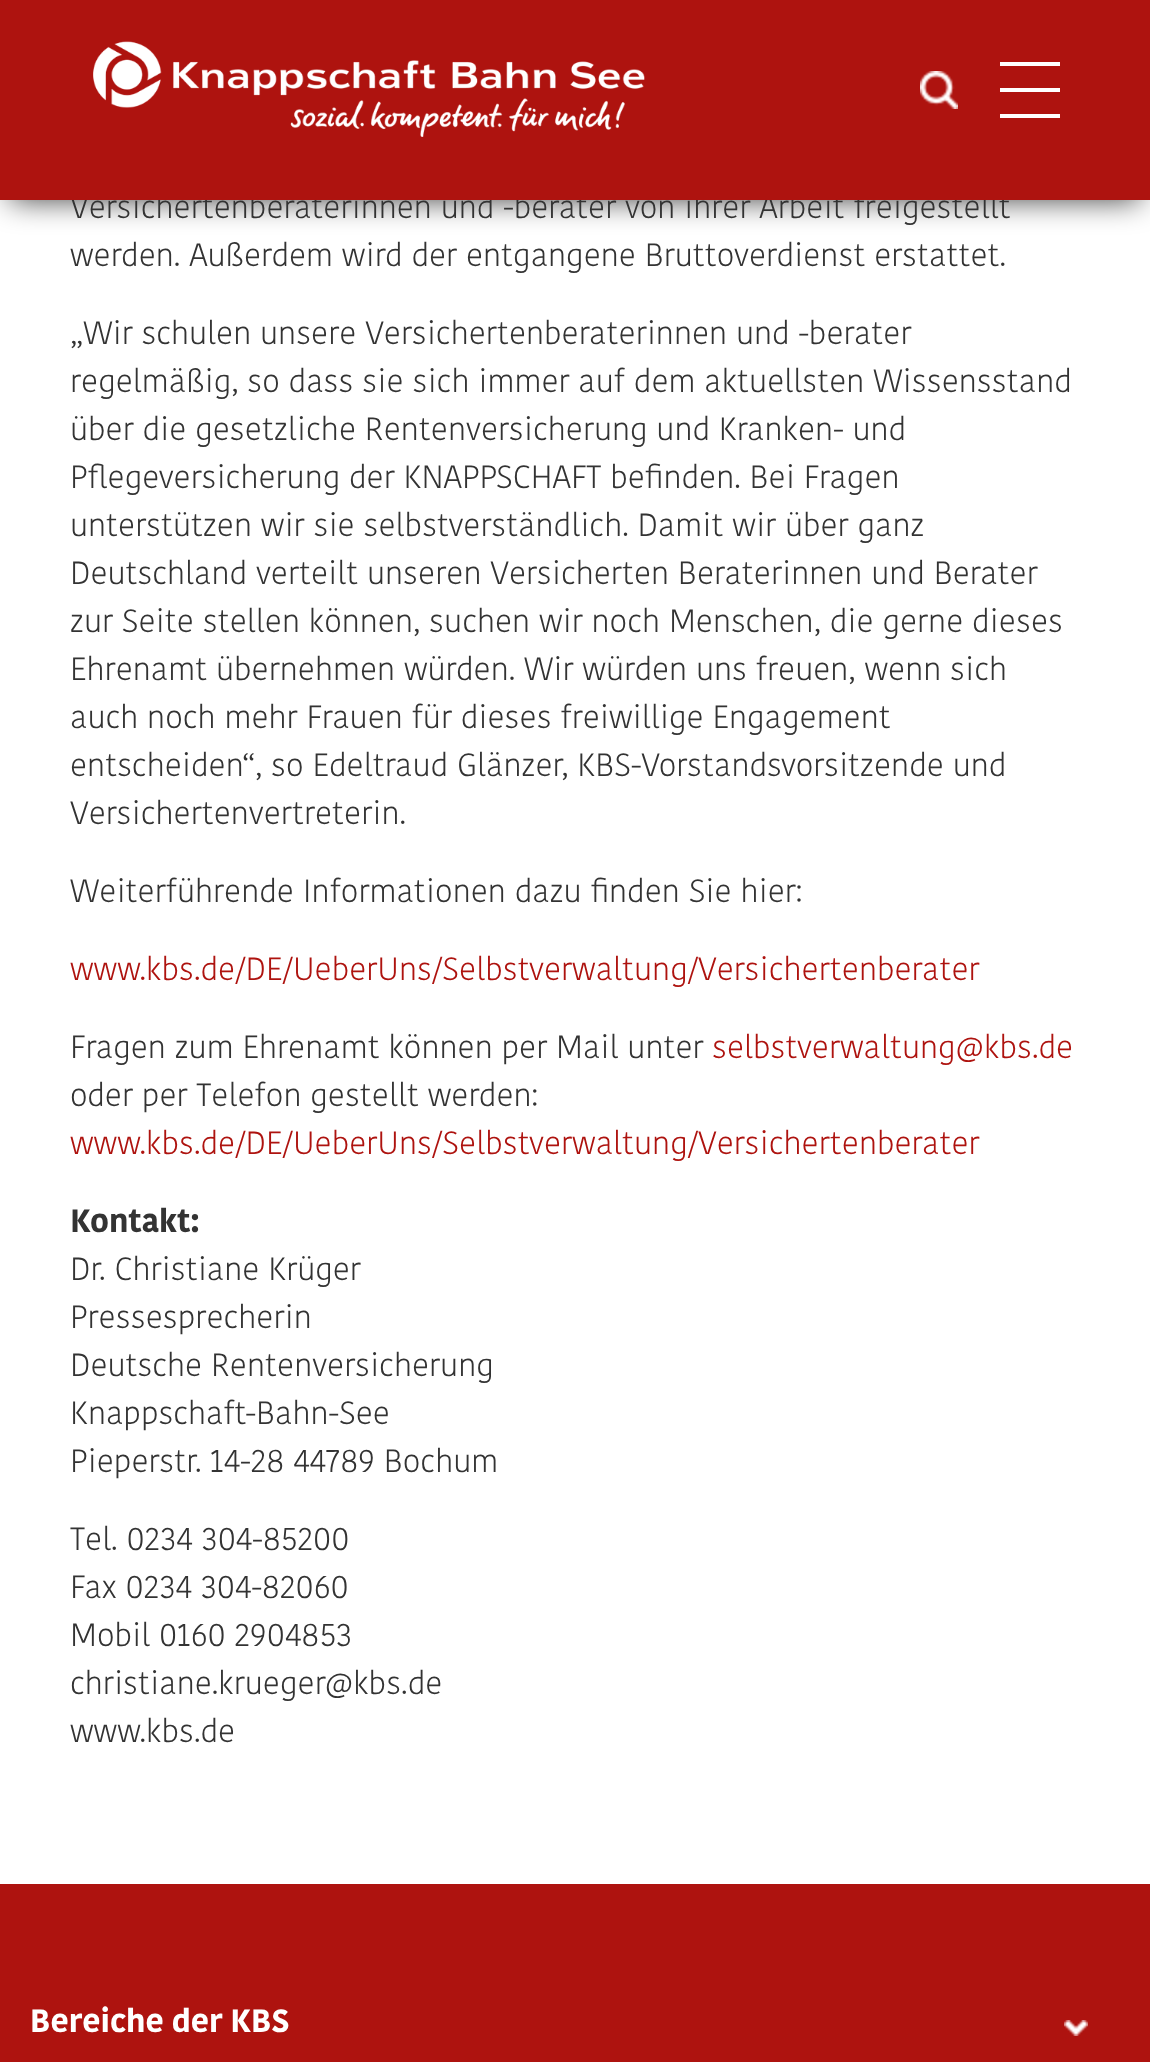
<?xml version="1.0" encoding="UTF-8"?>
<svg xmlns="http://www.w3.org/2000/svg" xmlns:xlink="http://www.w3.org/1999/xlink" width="1150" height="2062">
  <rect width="100%" height="100%" fill="#ffffff" />
  <rect x="10" y="20" width="1130" height="180" fill="#000000" fill-opacity="0.75" filter="blur(15px)" />
  <rect y="1884" width="1150" height="178" fill="#ae130f" />
  <image x="1064" y="2020" width="24" height="16" xlink:href="image3.png" />
  <text x="70" y="218" style="font-family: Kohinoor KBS; font-size: 32px; font-weight: 300; fill: #333333">Versichertenberaterinnen und -berater von ihrer Arbeit freigestellt</text>
  <rect width="1150" height="200" fill="#ae130f" />
  <image x="920" y="71" width="38" height="38" xlink:href="image2.png" />
  <rect x="1000" y="114" width="60" height="4" fill="#ffffff" />
  <rect x="1000" y="62" width="60" height="4" fill="#ffffff" />
  <rect x="1000" y="88" width="60" height="4" fill="#ffffff" />
  <image x="93" y="41" width="552" height="96" xlink:href="image1.png" />
  <text x="70" y="266" style="font-family: Kohinoor KBS; font-size: 32px; font-weight: 300; fill: #333333">werden. Außerdem wird der entgangene Bruttoverdienst erstattet.</text>
  <text x="70" y="344" style="font-family: Kohinoor KBS; font-size: 32px; font-weight: 300; fill: #333333">„Wir schulen unsere Versichertenberaterinnen und -berater</text>
  <text x="70" y="392" style="font-family: Kohinoor KBS; font-size: 32px; font-weight: 300; fill: #333333">regelmäßig, so dass sie sich immer auf dem aktuellsten Wissensstand</text>
  <text x="70" y="440" style="font-family: Kohinoor KBS; font-size: 32px; font-weight: 300; fill: #333333">über die gesetzliche Rentenversicherung und Kranken- und</text>
  <text x="70" y="488" style="font-family: Kohinoor KBS; font-size: 32px; font-weight: 300; fill: #333333">Pflegeversicherung der KNAPPSCHAFT befinden. Bei Fragen</text>
  <text x="70" y="536" style="font-family: Kohinoor KBS; font-size: 32px; font-weight: 300; fill: #333333">unterstützen wir sie selbstverständlich. Damit wir über ganz</text>
  <text x="70" y="584" style="font-family: Kohinoor KBS; font-size: 32px; font-weight: 300; fill: #333333">Deutschland verteilt unseren Versicherten Beraterinnen und Berater</text>
  <text x="70" y="632" style="font-family: Kohinoor KBS; font-size: 32px; font-weight: 300; fill: #333333">zur Seite stellen können, suchen wir noch Menschen, die gerne dieses</text>
  <text x="70" y="680" style="font-family: Kohinoor KBS; font-size: 32px; font-weight: 300; fill: #333333">Ehrenamt übernehmen würden. Wir würden uns freuen, wenn sich</text>
  <text x="70" y="728" style="font-family: Kohinoor KBS; font-size: 32px; font-weight: 300; fill: #333333">auch noch mehr Frauen für dieses freiwillige Engagement</text>
  <text x="70" y="776" style="font-family: Kohinoor KBS; font-size: 32px; font-weight: 300; fill: #333333">entscheiden“, so Edeltraud Glänzer, KBS-Vorstandsvorsitzende und</text>
  <text x="70" y="824" style="font-family: Kohinoor KBS; font-size: 32px; font-weight: 300; fill: #333333">Versichertenvertreterin.</text>
  <text x="70" y="902" style="font-family: Kohinoor KBS; font-size: 32px; font-weight: 300; fill: #333333">Weiterführende Informationen dazu finden Sie hier:</text>
  <text x="70" y="980" style="font-family: Kohinoor KBS; font-size: 32px; font-weight: 300; fill: #ae130f">www.kbs.de/DE/UeberUns/Selbstverwaltung/Versichertenberater</text>
  <text x="70" y="1058" style="font-family: Kohinoor KBS; font-size: 32px; font-weight: 300; fill: #333333">Fragen zum Ehrenamt können per Mail unter</text>
  <text x="712" y="1058" style="font-family: Kohinoor KBS; font-size: 32px; font-weight: 300; fill: #ae130f">selbstverwaltung@kbs.de</text>
  <text x="70" y="1106" style="font-family: Kohinoor KBS; font-size: 32px; font-weight: 300; fill: #333333">oder per Telefon gestellt werden:</text>
  <text x="70" y="1154" style="font-family: Kohinoor KBS; font-size: 32px; font-weight: 300; fill: #ae130f">www.kbs.de/DE/UeberUns/Selbstverwaltung/Versichertenberater</text>
  <text x="70" y="1232" style="font-family: Kohinoor KBS; font-size: 32px; font-weight: bold; fill: #333333">Kontakt:</text>
  <text x="70" y="1280" style="font-family: Kohinoor KBS; font-size: 32px; font-weight: 300; fill: #333333">Dr. Christiane Krüger</text>
  <text x="70" y="1328" style="font-family: Kohinoor KBS; font-size: 32px; font-weight: 300; fill: #333333">Pressesprecherin</text>
  <text x="70" y="1376" style="font-family: Kohinoor KBS; font-size: 32px; font-weight: 300; fill: #333333">Deutsche Rentenversicherung</text>
  <text x="70" y="1424" style="font-family: Kohinoor KBS; font-size: 32px; font-weight: 300; fill: #333333">Knappschaft-Bahn-See</text>
  <text x="70" y="1472" style="font-family: Kohinoor KBS; font-size: 32px; font-weight: 300; fill: #333333">Pieperstr. 14-28 44789 Bochum</text>
  <text x="70" y="1550" style="font-family: Kohinoor KBS; font-size: 32px; font-weight: 300; fill: #333333">Tel. 0234 304-85200</text>
  <text x="70" y="1598" style="font-family: Kohinoor KBS; font-size: 32px; font-weight: 300; fill: #333333">Fax 0234 304-82060</text>
  <text x="70" y="1646" style="font-family: Kohinoor KBS; font-size: 32px; font-weight: 300; fill: #333333">Mobil 0160 2904853</text>
  <text x="70" y="1694" style="font-family: Kohinoor KBS; font-size: 32px; font-weight: 300; fill: #333333">christiane.krueger@kbs.de</text>
  <text x="70" y="1742" style="font-family: Kohinoor KBS; font-size: 32px; font-weight: 300; fill: #333333">www.kbs.de</text>
  <text x="30" y="2032" style="font-family: Kohinoor KBS; font-size: 32px; font-weight: bold; fill: #ffffff">Bereiche der KBS</text>
</svg>
